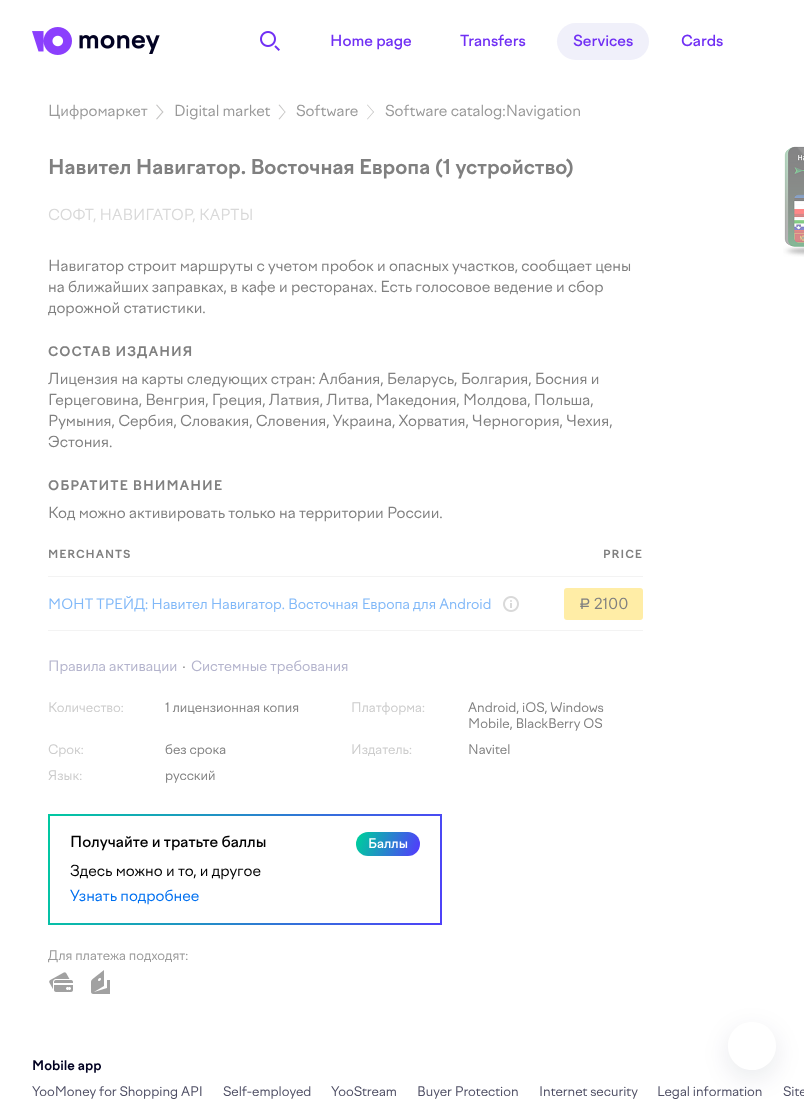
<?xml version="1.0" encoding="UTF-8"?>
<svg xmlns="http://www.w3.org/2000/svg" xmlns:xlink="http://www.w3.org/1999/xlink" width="804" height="1102">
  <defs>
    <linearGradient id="g1" gradientUnits="userSpaceOnUse" x1="356" y1="832" x2="420" y2="856"><stop offset="0" stop-color="#00c9a0" /><stop offset="0.07" stop-color="#00c9a0" /><stop offset="0.94" stop-color="#503ffa" /><stop offset="1" stop-color="#503ffa" /></linearGradient>
    <clipPath id="clip1"><path d="M 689 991 h 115 v 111 h -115 z m 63 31 c 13.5 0 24 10.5 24 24 c 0 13.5 -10.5 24 -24 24 c -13.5 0 -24 -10.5 -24 -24 c 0 -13.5 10.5 -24 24 -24 z" clip-rule="evenodd" /></clipPath>
  </defs>
  <rect width="100%" height="100%" fill="#ffffff" />
  <image x="32" y="27" width="128" height="28" xlink:href="image1.png" />
  <image x="260" y="31" width="20" height="20" xlink:href="image2.png" />
  <rect x="557" y="23" width="92" height="37" rx="18.5" fill="#f0f0fa" />
  <path d="M 157 104.5 l 6.5 7.5 l -1 0.5 l -6.5 -7.5 z" fill="#c5c4c3" />
  <path d="M 156 119 l 6.5 -7.5 l 1 0.5 l -6.5 7.5 z" fill="#c5c4c3" />
  <path d="M 279.5 104.5 l 6 7.5 l -0.5 0.5 l -6.5 -7.5 z" fill="#c5c4c3" />
  <path d="M 278.5 119 l 6.5 -7.5 l 0.5 0.5 l -6 7.5 z" fill="#c5c4c3" />
  <path d="M 367.5 104.5 l 6.5 7.5 l -0.5 0.5 l -6.5 -7.5 z" fill="#c5c4c3" />
  <path d="M 367 119 l 6.5 -7.5 l 0.5 0.5 l -6.5 7.5 z" fill="#c5c4c3" />
  <rect x="48" y="576" width="595" height="1" fill="#f3f3f3" />
  <rect x="48" y="630" width="595" height="1" fill="#f3f3f3" />
  <image x="503" y="596" width="16" height="16" xlink:href="image3.png" />
  <rect x="564" y="588" width="79" height="32" rx="3" fill="#ffeda6" />
  <image x="783" y="146" width="21" height="111" xlink:href="image4.png" />
  <image x="48" y="814" width="394" height="111" xlink:href="image5.png" />
  <rect x="356" y="832" width="64" height="24" rx="12" fill="url(#g1)" />
  <image x="49" y="972" width="24" height="20" xlink:href="image6.png" />
  <image x="91" y="970" width="19" height="24" xlink:href="image7.png" />
  <g clip-path="url(#clip1)">
    <rect x="726" y="1028" width="52" height="52" rx="26" fill="#000832" fill-opacity="0.08" filter="blur(12px)" />
  </g>
  <text x="330" y="46" style="font-family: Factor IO; font-size: 15px; font-weight: 500; fill: #702ff4">Home page</text>
  <text x="460" y="46" style="font-family: Factor IO; font-size: 15px; font-weight: 500; fill: #702ff4">Transfers</text>
  <text x="573" y="46" style="font-family: Factor IO; font-size: 15px; font-weight: 500; fill: #702ff4">Services</text>
  <text x="681" y="46" style="font-family: Factor IO; font-size: 15px; font-weight: 500; fill: #702ff4">Cards</text>
  <text x="48" y="116" style="font-family: Factor IO; font-size: 15px; fill: #999999">Цифромаркет</text>
  <text x="174" y="116" style="font-family: Factor IO; font-size: 15px; fill: #999999">Digital market</text>
  <text x="296" y="116" style="font-family: Factor IO; font-size: 15px; fill: #999999">Software</text>
  <text x="385" y="116" style="font-family: Factor IO; font-size: 15px; fill: #999999">Software catalog:Navigation</text>
  <text x="48" y="174" style="font-family: Factor IO; font-size: 20px; font-weight: bold; fill: #808080">Навител Навигатор. Восточная Европа (1 устройство)</text>
  <text x="48" y="220" style="font-family: Factor IO; font-size: 15px; fill: #d9d9d9">СОФТ, НАВИГАТОР, КАРТЫ</text>
  <text x="48" y="271" style="font-family: Factor IO; font-size: 15px; fill: #808080">Навигатор строит маршруты с учетом пробок и опасных участков, сообщает цены</text>
  <text x="48" y="292" style="font-family: Factor IO; font-size: 15px; fill: #808080">на ближайших заправках, в кафе и ресторанах. Есть голосовое ведение и сбор</text>
  <text x="48" y="313" style="font-family: Factor IO; font-size: 15px; fill: #808080">дорожной статистики.</text>
  <text x="48" y="356" style="font-family: Factor IO; font-size: 13px; font-weight: bold; letter-spacing: 1px; fill: #808080">СОСТАВ ИЗДАНИЯ</text>
  <text x="48" y="384" style="font-family: Factor IO; font-size: 15px; fill: #808080">Лицензия на карты следующих стран: Албания, Беларусь, Болгария, Босния и</text>
  <text x="48" y="405" style="font-family: Factor IO; font-size: 15px; fill: #808080">Герцеговина, Венгрия, Греция, Латвия, Литва, Македония, Молдова, Польша,</text>
  <text x="48" y="426" style="font-family: Factor IO; font-size: 15px; fill: #808080">Румыния, Сербия, Словакия, Словения, Украина, Хорватия, Черногория, Чехия,</text>
  <text x="48" y="447" style="font-family: Factor IO; font-size: 15px; fill: #808080">Эстония.</text>
  <text x="48" y="490" style="font-family: Factor IO; font-size: 13px; font-weight: bold; letter-spacing: 1px; fill: #808080">ОБРАТИТЕ ВНИМАНИЕ</text>
  <text x="48" y="518" style="font-family: Factor IO; font-size: 15px; fill: #808080">Код можно активировать только на территории России.</text>
  <text x="48" y="558" style="font-family: Factor IO; font-size: 11px; font-weight: bold; letter-spacing: 1px; fill: #808080">MERCHANTS</text>
  <text x="603" y="558" style="font-family: Factor IO; font-size: 11px; font-weight: bold; letter-spacing: 1px; fill: #808080">PRICE</text>
  <text x="48" y="609" style="font-family: Factor IO; font-size: 14px; fill: #80b8f8">МОНТ ТРЕЙД: Навител Навигатор. Восточная Европа для Android</text>
  <text x="579" y="609" style="font-family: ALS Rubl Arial; font-size: 15px; fill: #808080">Р</text>
  <text x="594" y="609" style="font-family: Factor IO; font-size: 15px; fill: #808080">2100</text>
  <text x="48" y="671" style="font-family: Factor IO; font-size: 14px; fill: #b3b3cc">Правила активации</text>
  <text x="182" y="671" style="font-family: Liberation Sans; font-size: 14px; fill: #808080">∙</text>
  <text x="191" y="671" style="font-family: Factor IO; font-size: 14px; fill: #b3b3cc">Системные требования</text>
  <text x="48" y="712" style="font-family: Factor IO; font-size: 13px; fill: #cccccc">Количество:</text>
  <text x="165" y="712" style="font-family: Factor IO; font-size: 13px; fill: #808080">1 лицензионная копия</text>
  <text x="351" y="712" style="font-family: Factor IO; font-size: 13px; fill: #cccccc">Платформа:</text>
  <text x="468" y="712" style="font-family: Factor IO; font-size: 13px; fill: #808080">Android, iOS, Windows</text>
  <text x="468" y="728" style="font-family: Factor IO; font-size: 13px; fill: #808080">Mobile, BlackBerry OS</text>
  <text x="48" y="754" style="font-family: Factor IO; font-size: 13px; fill: #cccccc">Срок:</text>
  <text x="165" y="754" style="font-family: Factor IO; font-size: 13px; fill: #808080">без срока</text>
  <text x="351" y="754" style="font-family: Factor IO; font-size: 13px; fill: #cccccc">Издатель:</text>
  <text x="468" y="754" style="font-family: Factor IO; font-size: 13px; fill: #808080">Navitel</text>
  <text x="48" y="780" style="font-family: Factor IO; font-size: 13px; fill: #cccccc">Язык:</text>
  <text x="165" y="780" style="font-family: Factor IO; font-size: 13px; fill: #808080">русский</text>
  <text x="70" y="847" style="font-family: Factor IO; font-size: 15px; font-weight: 500; fill: #000000">Получайте и тратьте баллы</text>
  <text x="368" y="848" style="font-family: Factor IO; font-size: 13px; font-weight: 500; fill: #ffffff">Баллы</text>
  <text x="70" y="876" style="font-family: Factor IO; font-size: 15px; fill: #000000">Здесь можно и то, и другое</text>
  <text x="70" y="901" style="font-family: Factor IO; font-size: 15px; fill: #0070f0">Узнать подробнее</text>
  <text x="48" y="960" style="font-family: Factor IO; font-size: 13px; fill: #999999">Для платежа подходят:</text>
  <text x="32" y="1070" style="font-family: Factor IO; font-size: 13px; font-weight: bold; fill: #020222">Mobile app</text>
  <text x="32" y="1096" style="font-family: Factor IO; font-size: 13px; fill: #4e4e64">YooMoney for Shopping API</text>
  <text x="223" y="1096" style="font-family: Factor IO; font-size: 13px; fill: #4e4e64">Self-employed</text>
  <text x="331" y="1096" style="font-family: Factor IO; font-size: 13px; fill: #4e4e64">YooStream</text>
  <text x="417" y="1096" style="font-family: Factor IO; font-size: 13px; fill: #4e4e64">Buyer Protection</text>
  <text x="539" y="1096" style="font-family: Factor IO; font-size: 13px; fill: #4e4e64">Internet security</text>
  <text x="657" y="1096" style="font-family: Factor IO; font-size: 13px; fill: #4e4e64">Legal information</text>
  <text x="783" y="1096" style="font-family: Factor IO; font-size: 13px; fill: #4e4e64">Site</text>
</svg>
